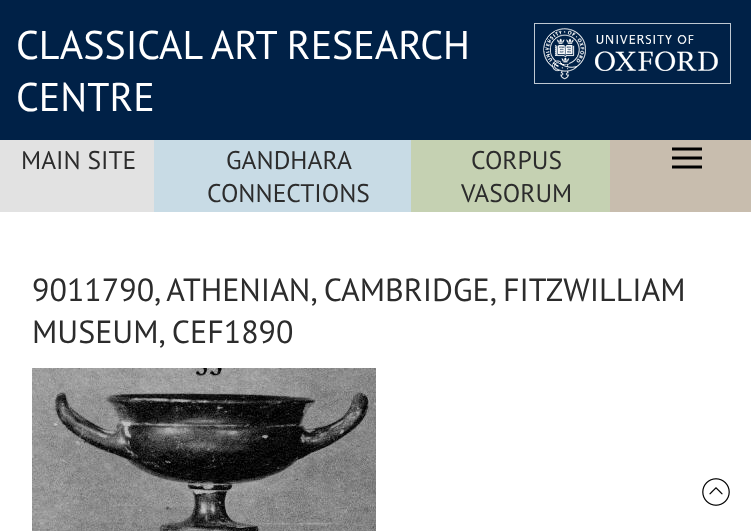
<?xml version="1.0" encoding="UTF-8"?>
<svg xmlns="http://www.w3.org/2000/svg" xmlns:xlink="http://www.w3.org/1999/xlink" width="751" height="531">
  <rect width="100%" height="100%" fill="#ffffff" />
  <rect width="751" height="140" fill="#002147" />
  <image x="534" y="23" width="197" height="61" xlink:href="image1.png" />
  <rect y="140" width="154" height="72" fill="#e2e2e2" />
  <rect x="154" y="140" width="257" height="72" fill="#c8dbe5" />
  <rect x="411" y="140" width="199" height="72" fill="#c5d1b2" />
  <rect x="610" y="140" width="141" height="72" fill="#c8bdae" />
  <image x="672" y="147" width="30" height="22" xlink:href="image2.png" />
  <image x="32" y="368" width="344" height="163" xlink:href="image3.png" />
  <image x="702" y="478" width="28" height="28" xlink:href="image4.png" />
  <text x="16" y="59" style="font-family: PT Sans; font-size: 40px; fill: #ffffff">CLASSICAL ART RESEARCH</text>
  <text x="16" y="111" style="font-family: PT Sans; font-size: 40px; fill: #ffffff">CENTRE</text>
  <text x="21" y="169" style="font-family: PT Sans; font-size: 25.5px; fill: #2c2c2c">MAIN SITE</text>
  <text x="226" y="169" style="font-family: PT Sans; font-size: 25.5px; fill: #2c2c2c">GANDHARA</text>
  <text x="207" y="202" style="font-family: PT Sans; font-size: 25.5px; fill: #2c2c2c">CONNECTIONS</text>
  <text x="471" y="169" style="font-family: PT Sans; font-size: 25.5px; fill: #2c2c2c">CORPUS</text>
  <text x="461" y="202" style="font-family: PT Sans; font-size: 25.5px; fill: #2c2c2c">VASORUM</text>
  <text x="32" y="301" style="font-family: PT Sans; font-size: 32px; fill: #2c2c2c">9011790, ATHENIAN, CAMBRIDGE, FITZWILLIAM</text>
  <text x="32" y="343" style="font-family: PT Sans; font-size: 32px; fill: #2c2c2c">MUSEUM, CEF1890</text>
</svg>
